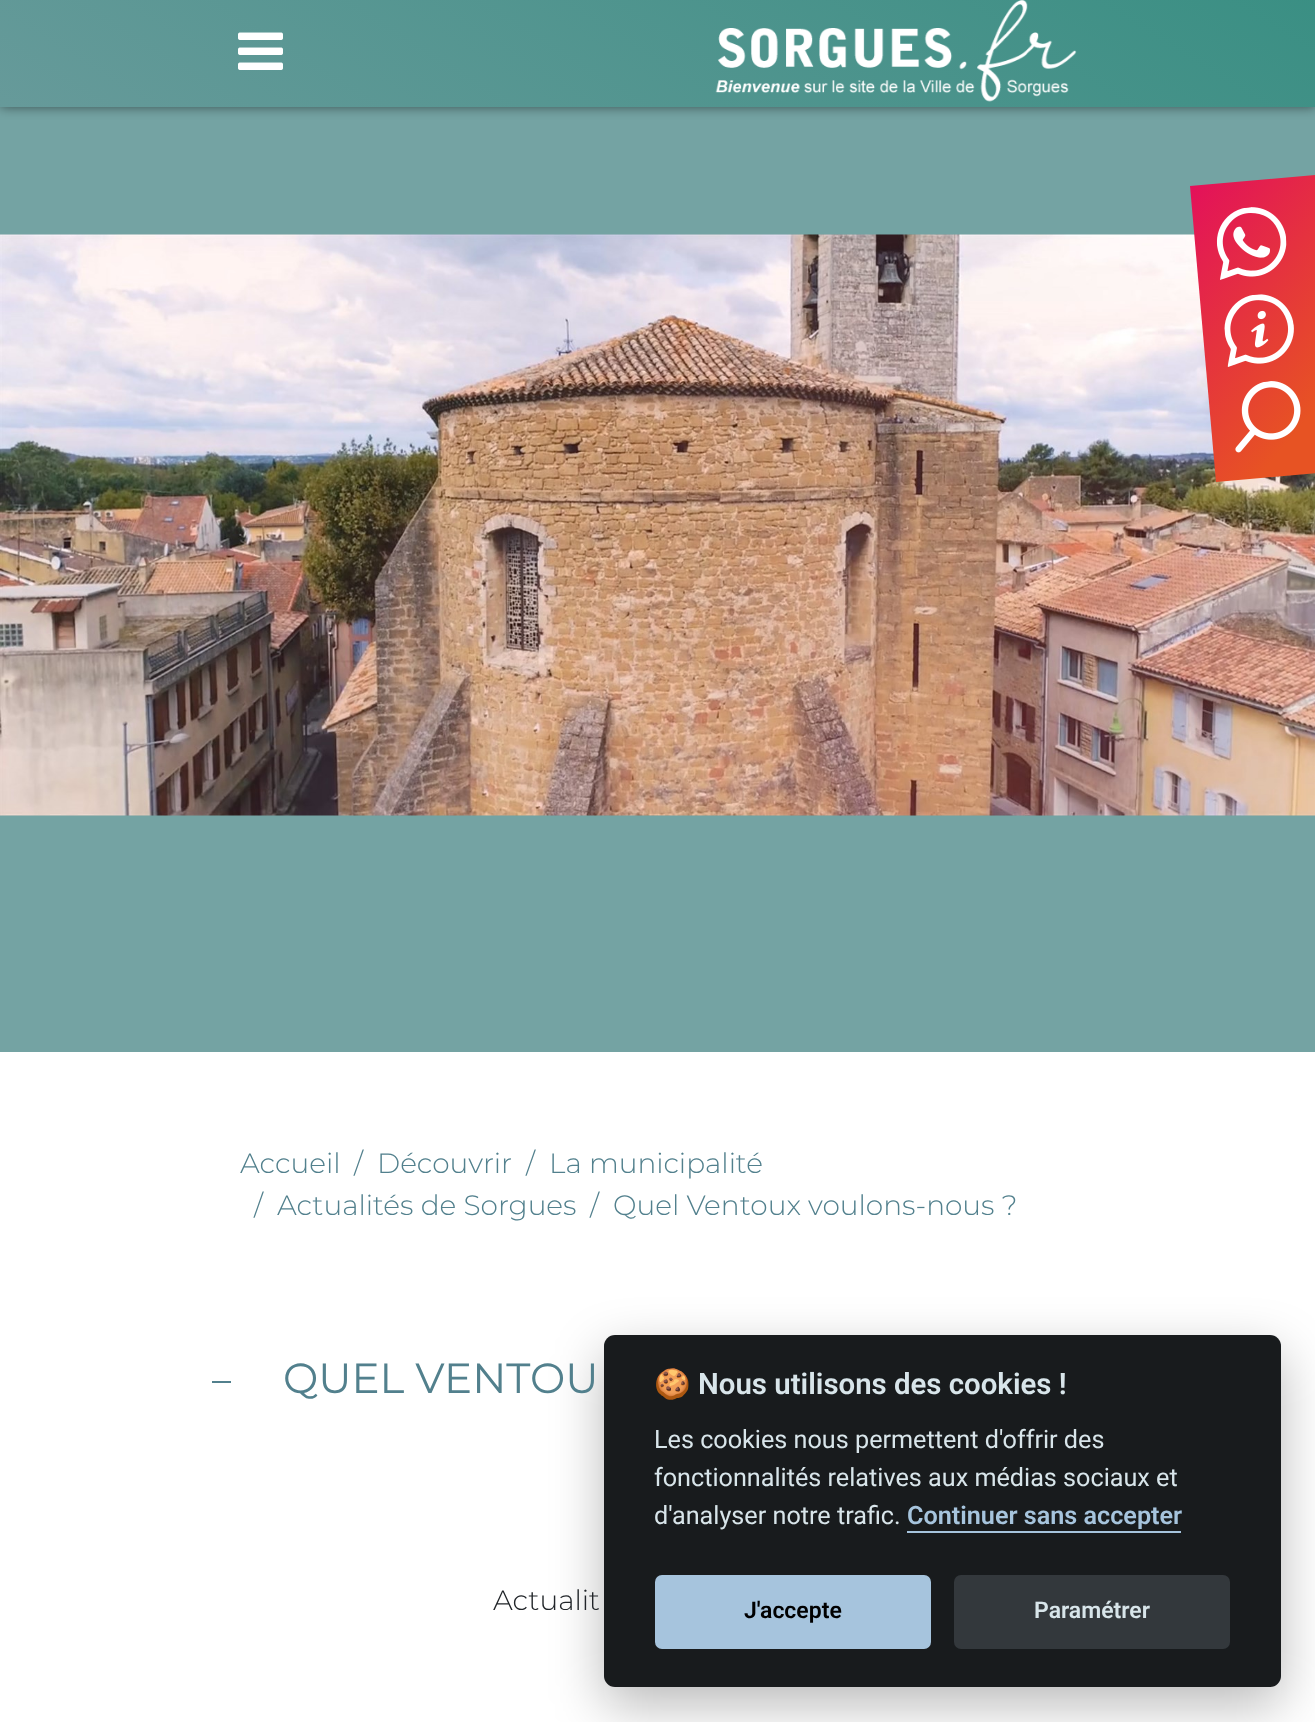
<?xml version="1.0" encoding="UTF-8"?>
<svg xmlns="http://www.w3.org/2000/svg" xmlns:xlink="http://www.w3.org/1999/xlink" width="1315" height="1722">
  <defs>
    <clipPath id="clip1"><path d="M 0 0 h 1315 v 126 h -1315 z m 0 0 h 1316 v 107 h -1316 z" clip-rule="evenodd" /></clipPath>
    <linearGradient id="g1" gradientUnits="userSpaceOnUse" x1="449" y1="387" x2="867" y2="-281"><stop offset="0" stop-color="#659999" stop-opacity="0.9" /><stop offset="1" stop-color="#348d80" stop-opacity="0.9" /></linearGradient>
    <linearGradient id="g2" gradientUnits="userSpaceOnUse" x1="1152" y1="232" x2="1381" y2="425"><stop offset="0" stop-color="#e3115a" /><stop offset="0.8" stop-color="#e75323" /></linearGradient>
  </defs>
  <rect width="100%" height="100%" fill="#ffffff" />
  <rect width="1315" height="1052" fill="#74a3a3" />
  <image x="0" y="234" width="1315" height="582" xlink:href="image1.png" />
  <g clip-path="url(#clip1)">
    <rect width="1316" height="107" fill="#000000" fill-opacity="0.5" filter="blur(6px)" />
  </g>
  <rect width="1315" height="107" fill="url(#g1)" />
  <image x="238" y="32" width="45" height="38" xlink:href="image2.png" />
  <image x="715" y="0" width="362" height="102" xlink:href="image3.png" />
  <path d="M 1190 186 l 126 -11 l 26 296 l -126 11 z" fill="url(#g2)" />
  <image x="1216" y="207" width="71" height="73" xlink:href="image4.png" />
  <image x="1224" y="294" width="70" height="73" xlink:href="image5.png" />
  <image x="1235" y="381" width="66" height="72" xlink:href="image6.png" />
  <rect x="212" y="1381" width="19" height="2" fill="#52808d" />
  <rect x="604" y="1353" width="677" height="352" rx="11" fill="#020203" fill-opacity="0.28" filter="blur(26px)" />
  <rect x="604" y="1335" width="677" height="352" rx="11" fill="#181b1d" />
  <rect x="907" y="1531" width="274" height="2" fill="#a6c4dd" />
  <rect x="655" y="1575" width="276" height="74" rx="7" fill="#a6c4dd" />
  <rect x="954" y="1575" width="276" height="74" rx="7" fill="#33383c" />
  <text x="240" y="1173" style="font-family: Montserrat; font-size: 28px; font-weight: 300; fill: #52808d">Accueil</text>
  <text x="354" y="1173" style="font-family: Montserrat; font-size: 28px; font-weight: 300; fill: #52808d">/</text>
  <text x="377" y="1173" style="font-family: Montserrat; font-size: 28px; font-weight: 300; fill: #52808d">Découvrir</text>
  <text x="526" y="1173" style="font-family: Montserrat; font-size: 28px; font-weight: 300; fill: #52808d">/</text>
  <text x="549" y="1173" style="font-family: Montserrat; font-size: 28px; font-weight: 300; fill: #52808d">La municipalité</text>
  <text x="254" y="1215" style="font-family: Montserrat; font-size: 28px; font-weight: 300; fill: #52808d">/</text>
  <text x="277" y="1215" style="font-family: Montserrat; font-size: 28px; font-weight: 300; fill: #52808d">Actualités de Sorgues</text>
  <text x="590" y="1215" style="font-family: Montserrat; font-size: 28px; font-weight: 300; fill: #52808d">/</text>
  <text x="613" y="1215" style="font-family: Montserrat; font-size: 28px; font-weight: 300; fill: #52808d">Quel Ventoux voulons-nous ?</text>
  <text x="283" y="1393" style="font-family: Montserrat; font-size: 42px; fill: #52808d">QUEL VENTOU</text>
  <text x="493" y="1610" style="font-family: Montserrat; font-size: 28px; font-weight: 300; fill: #212529">Actualit</text>
  <text x="654" y="1394" style="font-family: Noto Color Emoji; font-size: 29.4px; font-weight: bold; fill: #d8e5ea">🍪</text>
  <text x="698" y="1394" style="font-family: Roboto; font-size: 29.4px; font-weight: 600; fill: #d8e5ea">Nous utilisons des cookies !</text>
  <text x="654" y="1448" style="font-family: Roboto; font-size: 25.2px; fill: #d8e5ea">Les cookies nous permettent d'offrir des</text>
  <text x="654" y="1486" style="font-family: Roboto; font-size: 25.2px; fill: #d8e5ea">fonctionnalités relatives aux médias sociaux et</text>
  <text x="654" y="1524" style="font-family: Roboto; font-size: 25.2px; fill: #d8e5ea">d'analyser notre trafic.</text>
  <text x="907" y="1524" style="font-family: Roboto; font-size: 25.2px; font-weight: 600; fill: #a6c4dd">Continuer sans accepter</text>
  <text x="744" y="1618" style="font-family: Roboto; font-size: 23px; font-weight: 600; fill: #000000">J'accepte</text>
  <text x="1034" y="1618" style="font-family: Roboto; font-size: 23px; font-weight: 600; fill: #d8e5ea">Paramétrer</text>
</svg>
